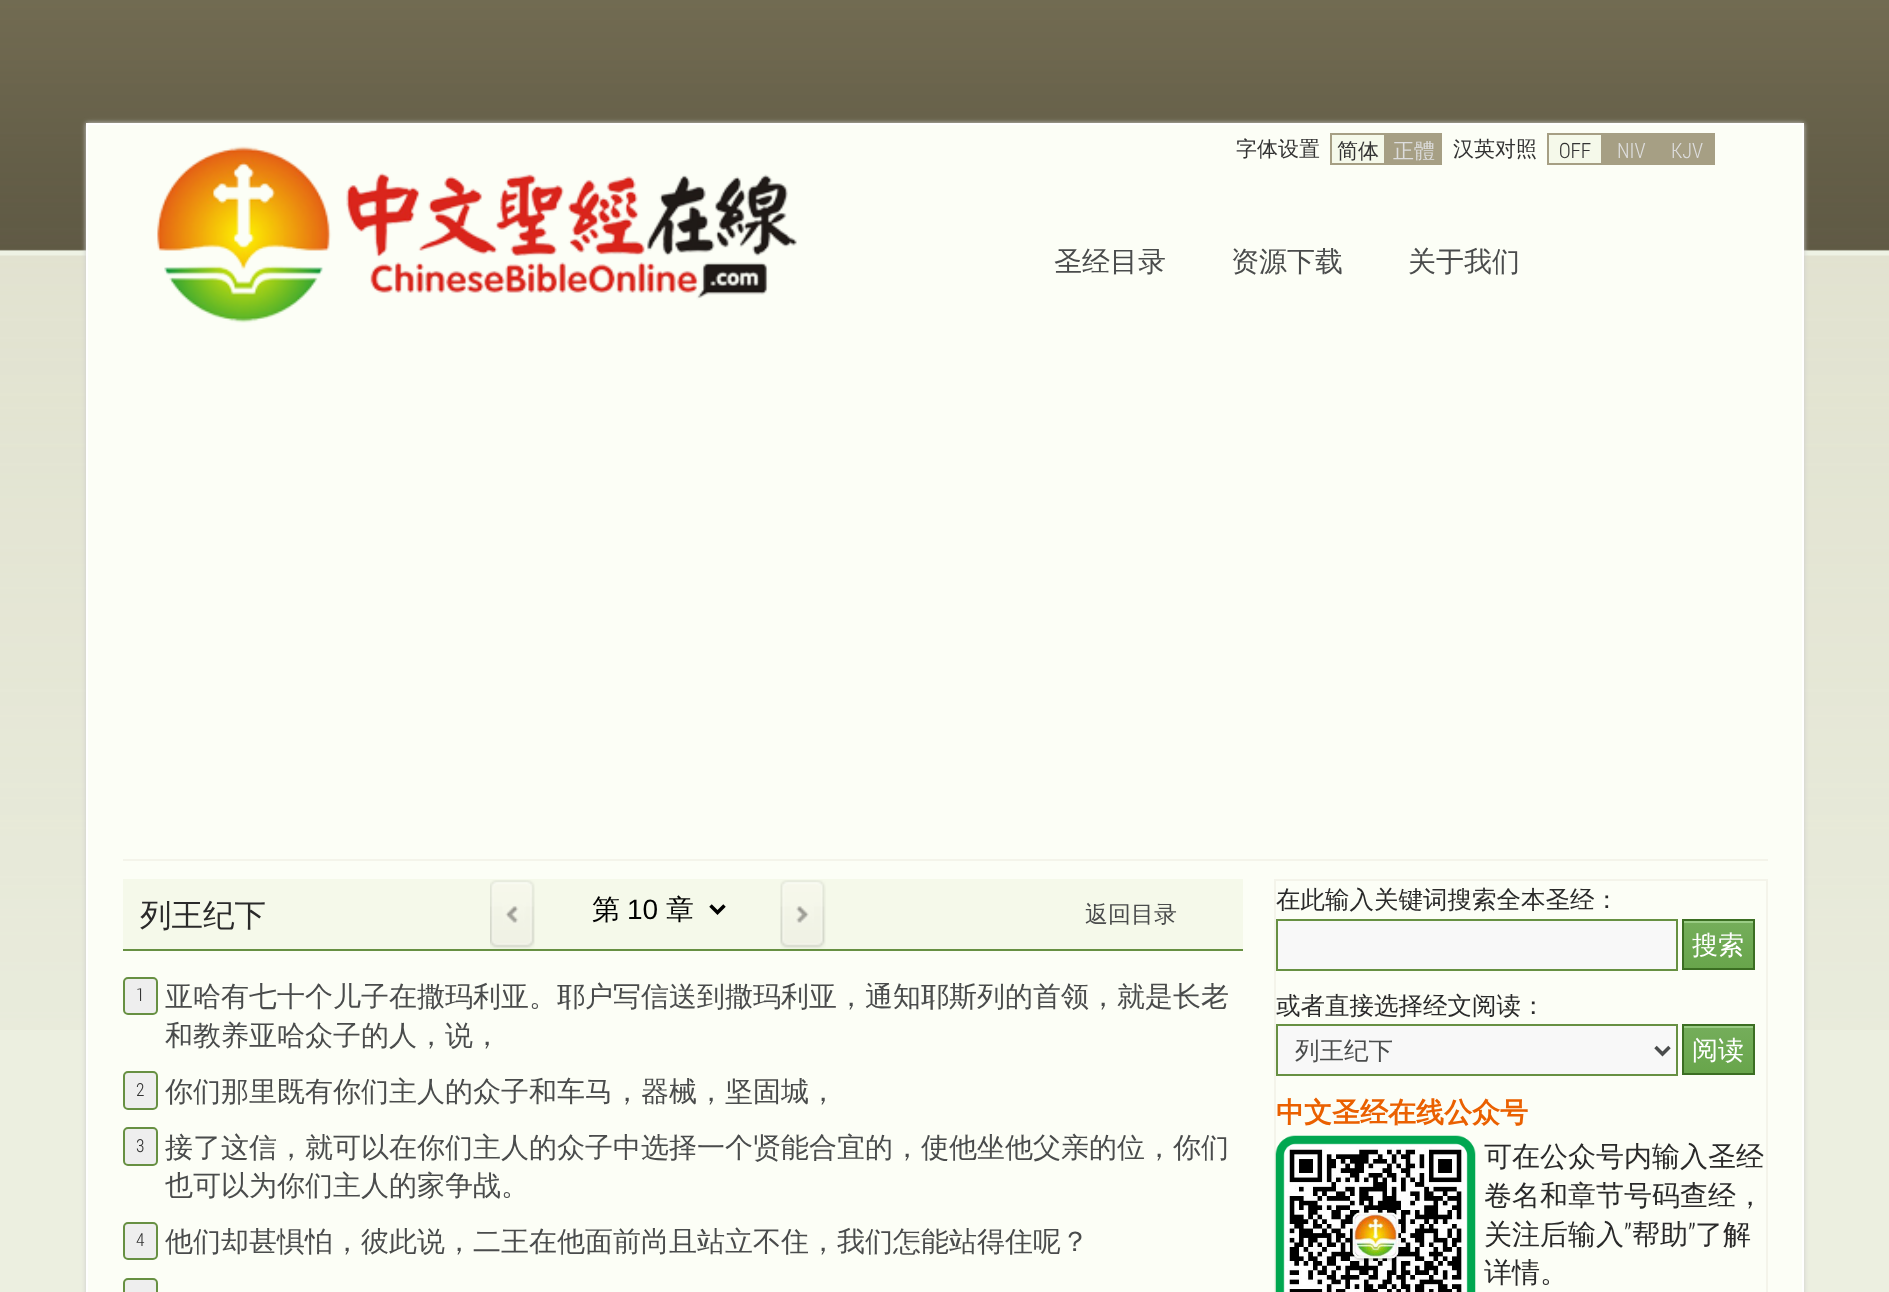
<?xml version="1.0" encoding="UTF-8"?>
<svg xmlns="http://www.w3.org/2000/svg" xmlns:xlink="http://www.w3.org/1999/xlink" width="1889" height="1292">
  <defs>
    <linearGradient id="g1" gradientUnits="userSpaceOnUse" x1="1719" y1="921" x2="1719" y2="968"><stop offset="0.05" stop-color="#74ad5a" /><stop offset="1" stop-color="#68a54b" /></linearGradient>
    <linearGradient id="g2" gradientUnits="userSpaceOnUse" x1="1719" y1="1026" x2="1719" y2="1073"><stop offset="0.05" stop-color="#74ad5a" /><stop offset="1" stop-color="#68a54b" /></linearGradient>
  </defs>
  <rect width="100%" height="100%" fill="#ecefe0" />
  <image x="0" y="0" width="1889" height="1030" xlink:href="image1.png" />
  <rect x="86" y="123" width="1718" height="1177" fill="#cccccc" filter="blur(2.5px)" />
  <rect x="87" y="124" width="1716" height="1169" fill="#fcfef6" stroke="#ffffff" stroke-width="2" />
  <rect x="123" y="859" width="1645" height="2" fill="#f4f4ea" />
  <image x="157" y="146" width="640" height="177" xlink:href="image2.png" />
  <rect x="1331" y="134" width="54" height="30" fill="#f5f9ea" stroke="#a69f84" stroke-width="2" />
  <rect x="1386" y="133" width="56" height="32" fill="#a69f84" />
  <rect x="1548" y="134" width="54" height="30" fill="#f5f9ea" stroke="#a69f84" stroke-width="2" />
  <rect x="1603" y="133" width="112" height="32" fill="#a69f84" />
  <rect x="123" y="879" width="1120" height="70" fill="#f5f9ea" />
  <rect x="123" y="949" width="1120" height="2" fill="#679042" />
  <image x="490" y="880" width="45" height="69" xlink:href="image3.png" />
  <path d="M 710.5 905.5 l 7 7 l 7 -7" fill="none" stroke="#000000" stroke-width="3.5" />
  <image x="780" y="880" width="46" height="69" xlink:href="image4.png" />
  <rect x="124" y="978" width="33" height="36" rx="4" fill="#eeeeee" stroke="#679042" stroke-width="2" />
  <rect x="124" y="1072" width="33" height="37" rx="4" fill="#eeeeee" stroke="#679042" stroke-width="2" />
  <rect x="124" y="1128" width="33" height="37" rx="4" fill="#eeeeee" stroke="#679042" stroke-width="2" />
  <rect x="124" y="1223" width="33" height="36" rx="4" fill="#eeeeee" stroke="#679042" stroke-width="2" />
  <rect x="124" y="1279" width="33" height="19" rx="4" fill="#eeeeee" stroke="#679042" stroke-width="2" />
  <rect x="1275" y="880" width="492" height="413" fill="none" stroke="#f4f4ea" stroke-width="2" />
  <rect x="1277" y="920" width="400" height="50" fill="#f8f8f8" stroke="#679042" stroke-width="2" />
  <rect x="1684" y="923" width="69" height="45" fill="url(#g1)" />
  <rect x="1684" y="921" width="70" height="2" fill="#9acc85" />
  <rect x="1683" y="920" width="71" height="49" fill="none" stroke="#3b6e22" stroke-width="2" />
  <rect x="1277" y="1025" width="400" height="50" fill="#f8f8f8" stroke="#679042" stroke-width="2" />
  <path d="M 1655.5 1047 l 7 7 l 7 -7" fill="none" stroke="#4a4c4c" stroke-width="3.5" />
  <rect x="1684" y="1028" width="69" height="45" fill="url(#g2)" />
  <rect x="1684" y="1026" width="70" height="2" fill="#9acc85" />
  <rect x="1683" y="1025" width="71" height="49" fill="none" stroke="#3b6e22" stroke-width="2" />
  <image x="1275" y="1135" width="201" height="157" xlink:href="image5.png" />
  <text x="1236" y="156" style="font-family: WenQuanYi Zen Hei; font-size: 21px; font-weight: 500; fill: #333333">字体设置</text>
  <text x="1337" y="158" style="font-family: WenQuanYi Zen Hei; font-size: 21px; font-weight: 500; fill: #333333">简体</text>
  <text x="1393" y="158" style="font-family: WenQuanYi Zen Hei; font-size: 21px; font-weight: 500; fill: #dddddd">正體</text>
  <text x="1453" y="156" style="font-family: WenQuanYi Zen Hei; font-size: 21px; font-weight: 500; fill: #333333">汉英对照</text>
  <text x="1559" y="158" style="font-family: Roboto Condensed; font-size: 21px; font-weight: 300; fill: #333333">OFF</text>
  <text x="1617" y="158" style="font-family: Roboto Condensed; font-size: 21px; font-weight: 300; fill: #dddddd">NIV</text>
  <text x="1671" y="158" style="font-family: Roboto Condensed; font-size: 21px; font-weight: 300; fill: #dddddd">KJV</text>
  <text x="1054" y="271" style="font-family: WenQuanYi Zen Hei; font-size: 28px; font-weight: 500; fill: #4a4c4c">圣经目录</text>
  <text x="1231" y="271" style="font-family: WenQuanYi Zen Hei; font-size: 28px; font-weight: 500; fill: #4a4c4c">资源下载</text>
  <text x="1408" y="271" style="font-family: WenQuanYi Zen Hei; font-size: 28px; font-weight: 500; fill: #4a4c4c">关于我们</text>
  <text x="140" y="926" style="font-family: WenQuanYi Zen Hei; font-size: 31.5px; font-weight: 500; fill: #2a2a2a">列王纪下</text>
  <text x="592" y="919" style="font-family: WenQuanYi Zen Hei; font-size: 28px; font-weight: 500; fill: #000000">第</text>
  <text x="627" y="919" style="font-family: Liberation Sans; font-size: 28px; fill: #000000">10</text>
  <text x="666" y="919" style="font-family: WenQuanYi Zen Hei; font-size: 28px; font-weight: 500; fill: #000000">章</text>
  <text x="1085" y="922" style="font-family: WenQuanYi Zen Hei; font-size: 23px; font-weight: 500; fill: #4a4c4c">返回目录</text>
  <text x="136" y="1001" style="font-family: Roboto Condensed; font-size: 18px; font-weight: 300; fill: #333333">1</text>
  <text x="165" y="1006" style="font-family: WenQuanYi Zen Hei; font-size: 28px; font-weight: 500; fill: #4a4c4c">亚哈有七十个儿子在撒玛利亚。耶户写信送到撒玛利亚，通知耶斯列的首领，就是长老</text>
  <text x="165" y="1045" style="font-family: WenQuanYi Zen Hei; font-size: 28px; font-weight: 500; fill: #4a4c4c">和教养亚哈众子的人，说，</text>
  <text x="136" y="1096" style="font-family: Roboto Condensed; font-size: 18px; font-weight: 300; fill: #333333">2</text>
  <text x="165" y="1101" style="font-family: WenQuanYi Zen Hei; font-size: 28px; font-weight: 500; fill: #4a4c4c">你们那里既有你们主人的众子和车马，器械，坚固城，</text>
  <text x="136" y="1152" style="font-family: Roboto Condensed; font-size: 18px; font-weight: 300; fill: #333333">3</text>
  <text x="165" y="1157" style="font-family: WenQuanYi Zen Hei; font-size: 28px; font-weight: 500; fill: #4a4c4c">接了这信，就可以在你们主人的众子中选择一个贤能合宜的，使他坐他父亲的位，你们</text>
  <text x="165" y="1195" style="font-family: WenQuanYi Zen Hei; font-size: 28px; font-weight: 500; fill: #4a4c4c">也可以为你们主人的家争战。</text>
  <text x="136" y="1246" style="font-family: Roboto Condensed; font-size: 18px; font-weight: 300; fill: #333333">4</text>
  <text x="165" y="1251" style="font-family: WenQuanYi Zen Hei; font-size: 28px; font-weight: 500; fill: #4a4c4c">他们却甚惧怕，彼此说，二王在他面前尚且站立不住，我们怎能站得住呢？</text>
  <text x="1276" y="908" style="font-family: WenQuanYi Zen Hei; font-size: 24.5px; font-weight: 500; fill: #2a2a2a">在此输入关键词搜索全本圣经：</text>
  <text x="1692" y="954" style="font-family: WenQuanYi Zen Hei; font-size: 26px; font-weight: 500; fill: #ffffff">搜索</text>
  <text x="1276" y="1014" style="font-family: WenQuanYi Zen Hei; font-size: 24.5px; font-weight: 500; fill: #2a2a2a">或者直接选择经文阅读：</text>
  <text x="1295" y="1059" style="font-family: WenQuanYi Zen Hei; font-size: 24.5px; font-weight: 500; fill: #4a4c4c">列王纪下</text>
  <text x="1692" y="1059" style="font-family: WenQuanYi Zen Hei; font-size: 26px; font-weight: 500; fill: #ffffff">阅读</text>
  <text x="1276" y="1122" style="font-family: WenQuanYi Zen Hei; font-size: 28px; font-weight: bold; fill: #ea6000">中文圣经在线公众号</text>
  <text x="1484" y="1166" style="font-family: WenQuanYi Zen Hei; font-size: 28px; font-weight: 500; fill: #2a2a2a">可在公众号内输入圣经</text>
  <text x="1484" y="1205" style="font-family: WenQuanYi Zen Hei; font-size: 28px; font-weight: 500; fill: #2a2a2a">卷名和章节号码查经，</text>
  <text x="1484" y="1244" style="font-family: WenQuanYi Zen Hei; font-size: 28px; font-weight: 500; fill: #2a2a2a">关注后输入</text>
  <text x="1624" y="1244" style="font-family: Roboto Condensed; font-size: 28px; font-weight: 300; fill: #2a2a2a">”</text>
  <text x="1632" y="1244" style="font-family: WenQuanYi Zen Hei; font-size: 28px; font-weight: 500; fill: #2a2a2a">帮助</text>
  <text x="1688" y="1244" style="font-family: Roboto Condensed; font-size: 28px; font-weight: 300; fill: #2a2a2a">”</text>
  <text x="1695" y="1244" style="font-family: WenQuanYi Zen Hei; font-size: 28px; font-weight: 500; fill: #2a2a2a">了解</text>
  <text x="1484" y="1282" style="font-family: WenQuanYi Zen Hei; font-size: 28px; font-weight: 500; fill: #2a2a2a">详情。</text>
</svg>
